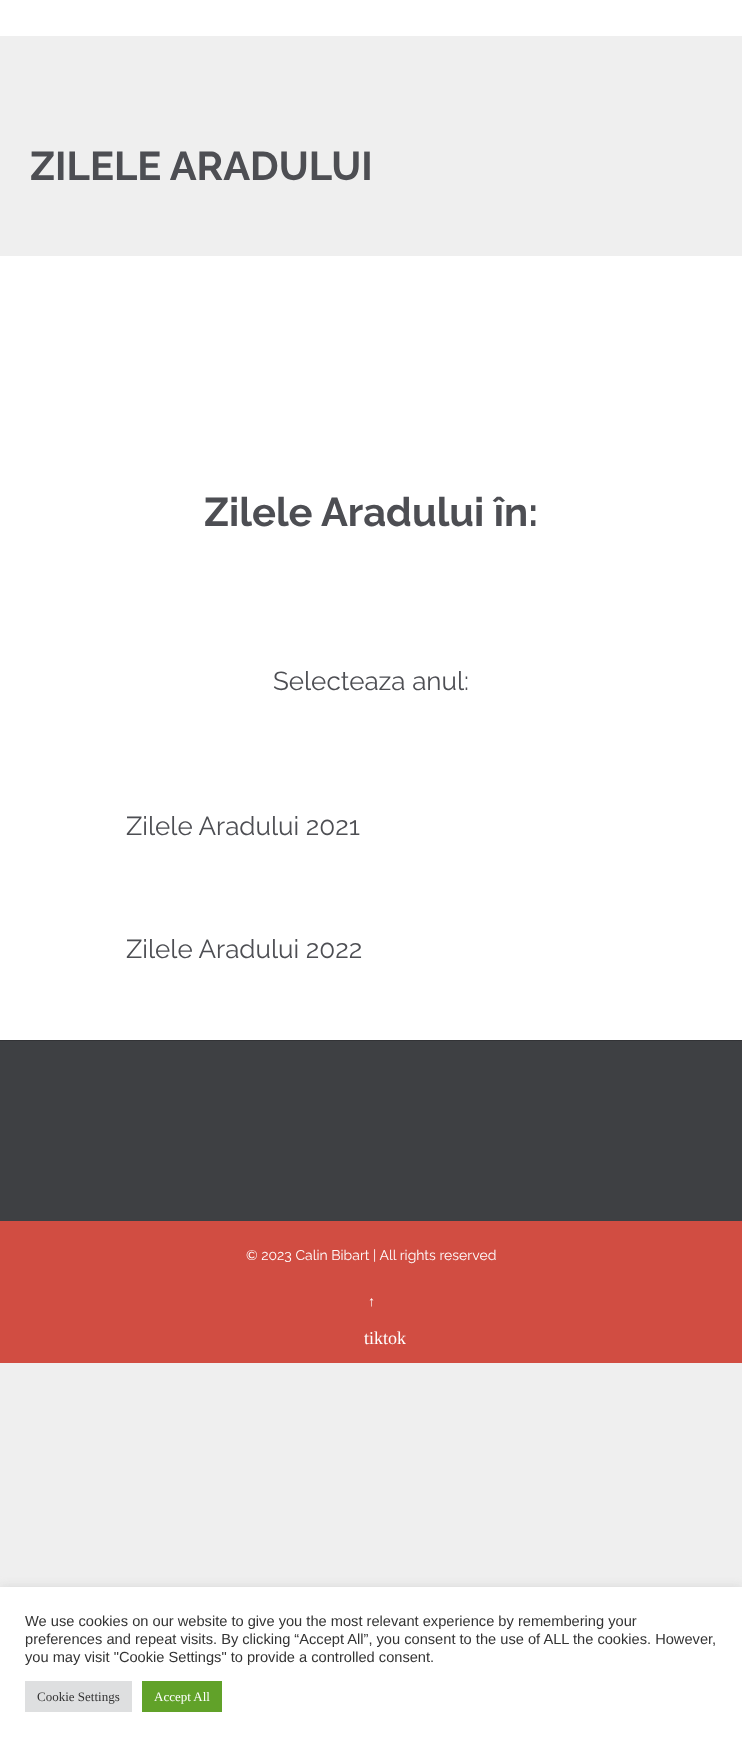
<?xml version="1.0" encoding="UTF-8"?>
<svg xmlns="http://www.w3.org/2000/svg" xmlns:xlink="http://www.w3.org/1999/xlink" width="742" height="1742">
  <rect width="100%" height="100%" fill="#efefef" />
  <rect width="742" height="36" fill="#ffffff" />
  <rect y="256" width="742" height="784" fill="#ffffff" />
  <rect y="1041" width="742" height="180" fill="#3e4043" />
  <rect y="1040" width="742" height="1" fill="#323336" />
  <rect y="1221" width="742" height="142" fill="#d14d42" />
  <rect y="1586" width="742" height="155" fill="#acabab" fill-opacity="0.3" filter="blur(5px)" />
  <rect y="1587" width="742" height="155" fill="#ffffff" />
  <rect x="25" y="1681" width="107" height="31" fill="#dedfe0" />
  <rect x="142" y="1681" width="80" height="31" fill="#61a229" />
  <text x="30" y="180" style="font-family: Raleway; font-size: 40px; font-weight: bold; fill: #4d4e53">ZILELE ARADULUI</text>
  <text x="204" y="526" style="font-family: Raleway; font-size: 40px; font-weight: bold; fill: #4d4e53">Zilele Aradului în:</text>
  <text x="273" y="690" style="font-family: Raleway; font-size: 26px; fill: #4d4e53">Selecteaza anul:</text>
  <text x="126" y="835" style="font-family: Raleway; font-size: 26px; fill: #4d4e53">Zilele Aradului 2021</text>
  <text x="126" y="958" style="font-family: Raleway; font-size: 26px; fill: #4d4e53">Zilele Aradului 2022</text>
  <text x="246" y="1260" style="font-family: Raleway; font-size: 14px; fill: #ffffff">© 2023 Calin Bibart | All rights reserved</text>
  <text x="368" y="1306" style="font-family: Liberation Serif; font-size: 14px; fill: #ffffff">↑</text>
  <text x="364" y="1344" style="font-family: Liberation Serif; font-size: 18px; fill: #ffffff">tiktok</text>
  <text x="25" y="1626" style="font-family: Liberation Sans; font-size: 14.65px; fill: #333333">We use cookies on our website to give you the most relevant experience by remembering your</text>
  <text x="25" y="1644" style="font-family: Liberation Sans; font-size: 14.65px; fill: #333333">preferences and repeat visits. By clicking “Accept All”, you consent to the use of ALL the cookies. However,</text>
  <text x="25" y="1662" style="font-family: Liberation Sans; font-size: 14.65px; fill: #333333">you may visit "Cookie Settings" to provide a controlled consent.</text>
  <text x="37" y="1701" style="font-family: Liberation Serif; font-size: 13px; fill: #333333">Cookie Settings</text>
  <text x="154" y="1701" style="font-family: Liberation Serif; font-size: 13px; fill: #ffffff">Accept All</text>
</svg>
